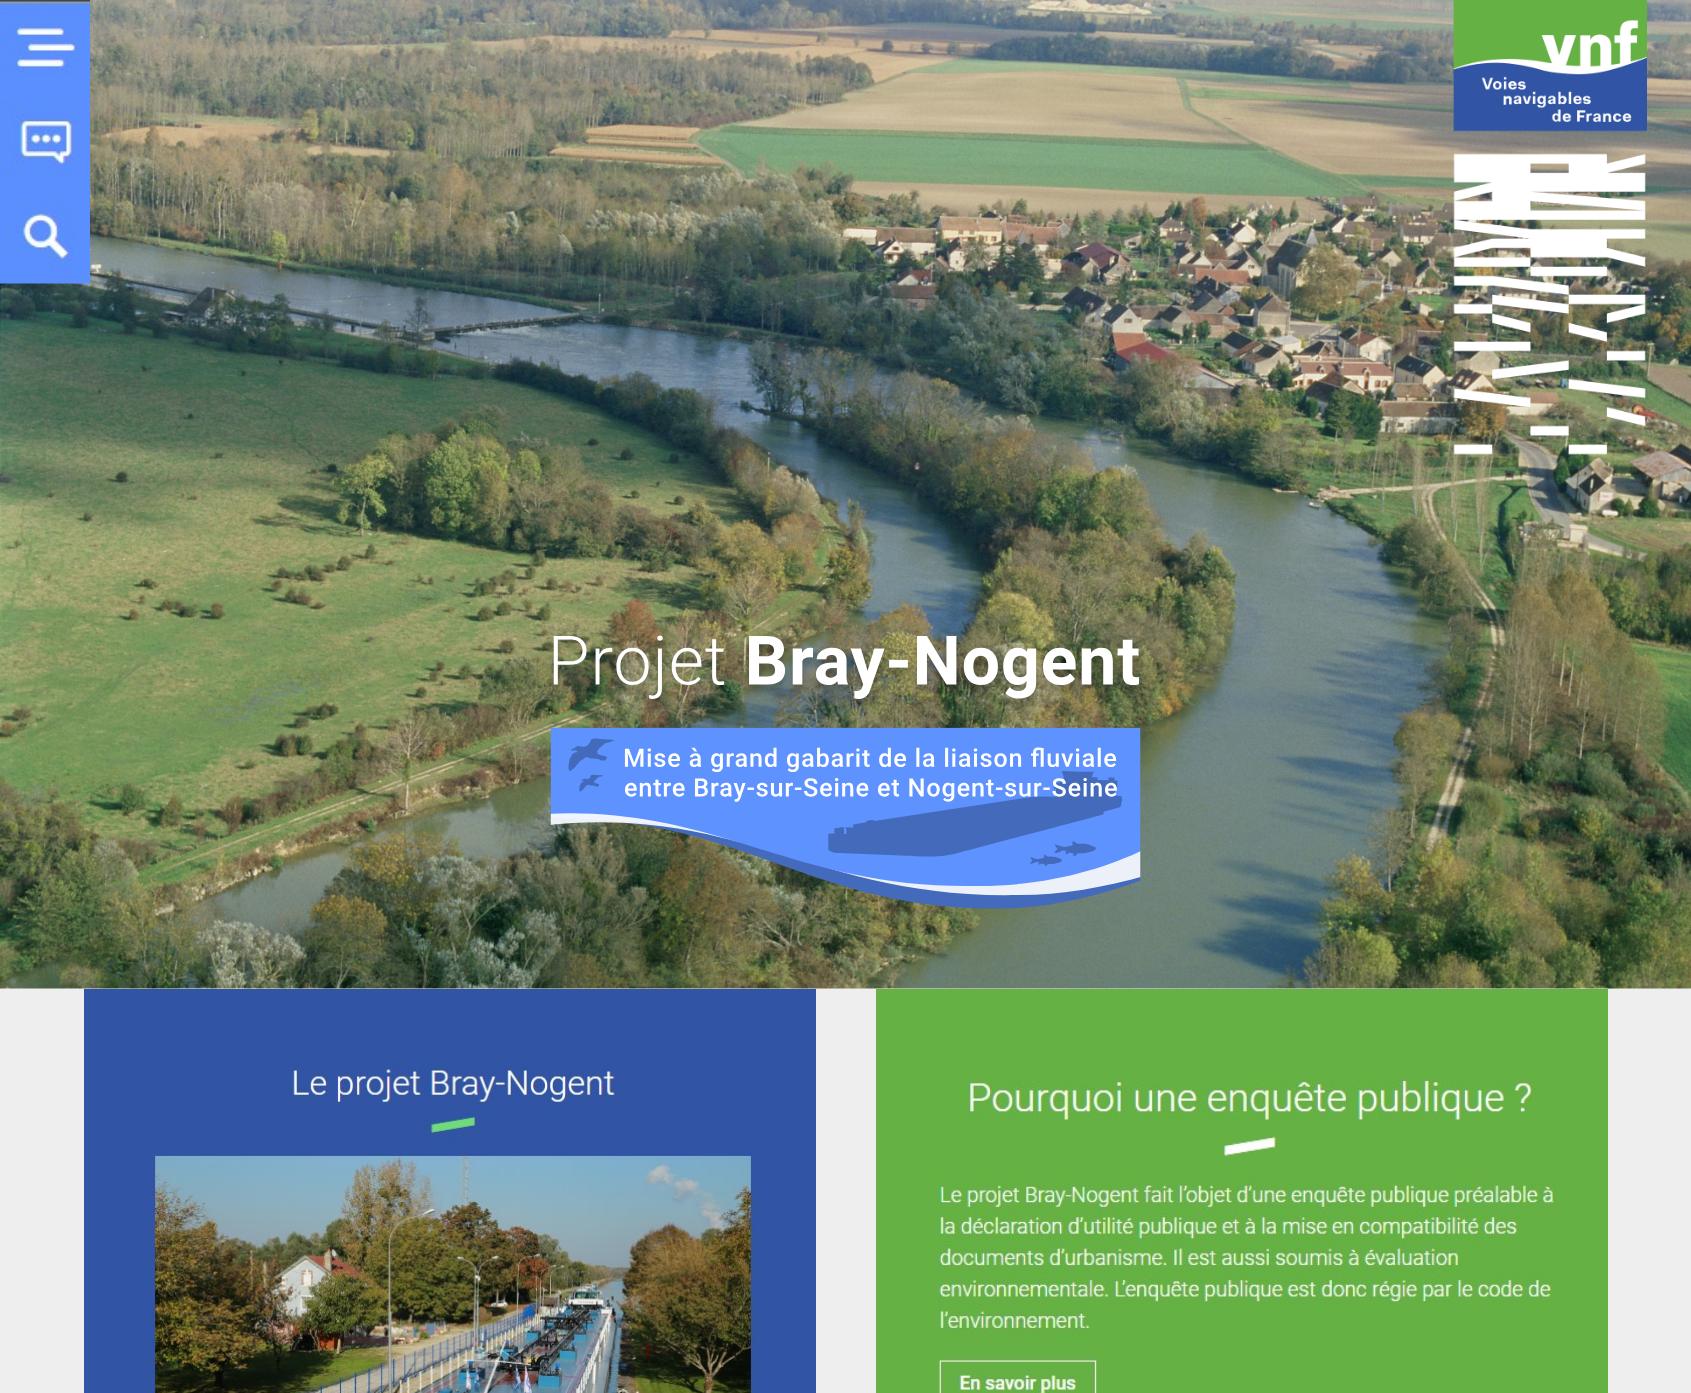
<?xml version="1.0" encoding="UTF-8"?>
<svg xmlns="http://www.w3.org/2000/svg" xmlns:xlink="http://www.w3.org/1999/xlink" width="1691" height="1393">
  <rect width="100%" height="100%" fill="#eeeeee" />
  <image x="0" y="0" width="1691" height="989" xlink:href="image1.png" />
  <image x="0" y="0" width="90" height="284" xlink:href="image2.png" />
  <image x="1453" y="0" width="194" height="455" xlink:href="image3.png" />
  <image x="549" y="635" width="594" height="274" xlink:href="image4.png" />
  <rect x="84" y="989" width="732" height="404" fill="#3155a4" />
  <image x="145" y="1063" width="611" height="330" xlink:href="image5.png" />
  <rect x="876" y="989" width="732" height="404" fill="#65b144" />
  <image x="938" y="1073" width="618" height="320" xlink:href="image6.png" />
</svg>
